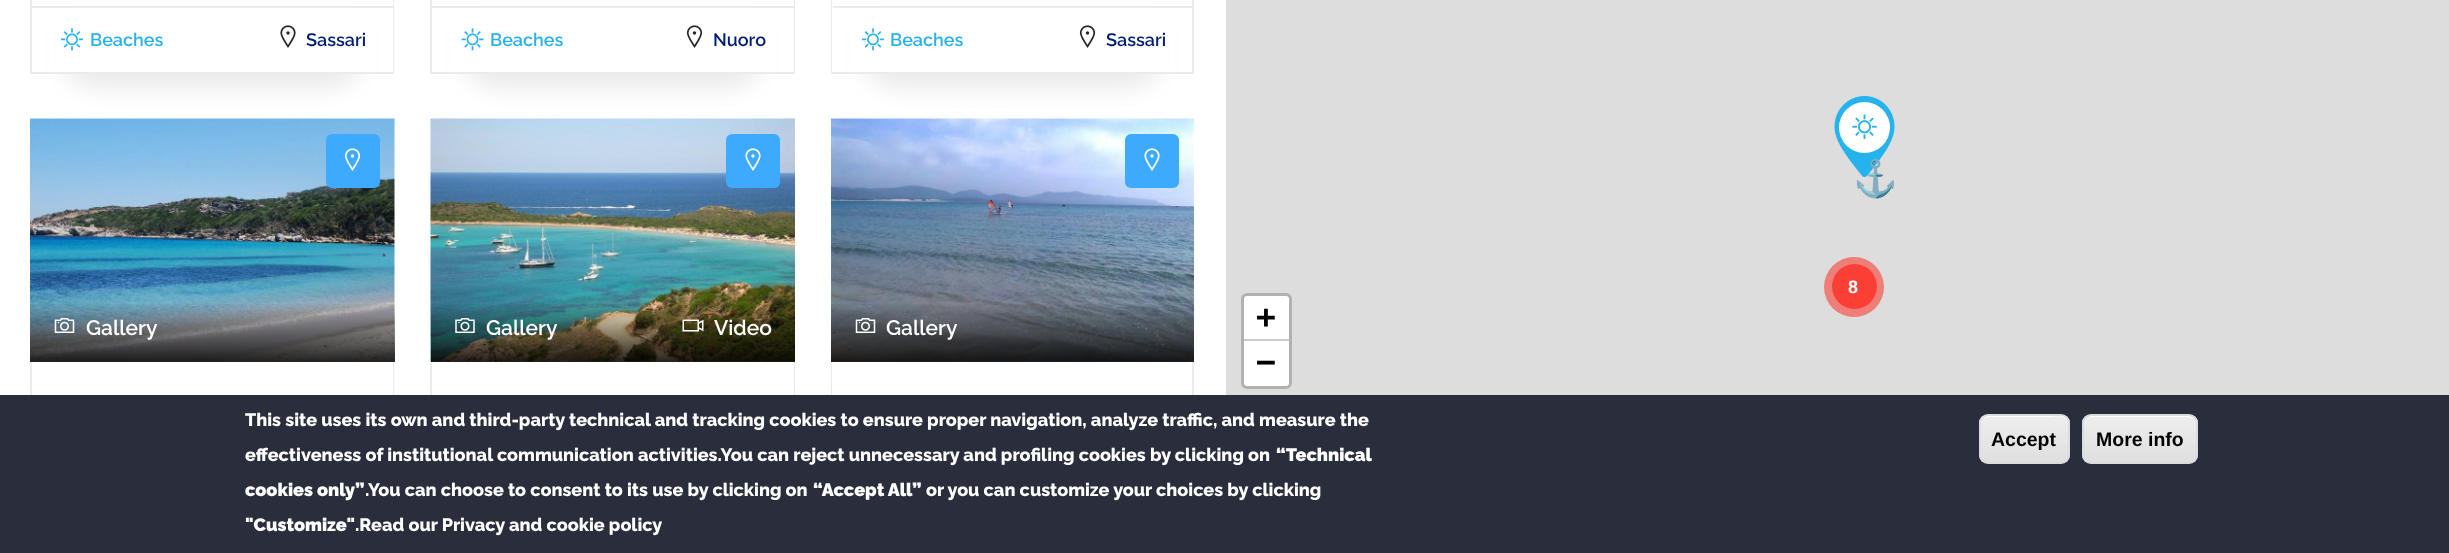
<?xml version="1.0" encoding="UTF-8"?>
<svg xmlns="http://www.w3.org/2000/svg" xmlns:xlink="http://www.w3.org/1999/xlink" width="2449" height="553">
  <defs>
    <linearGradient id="g1" gradientUnits="userSpaceOnUse" x1="212" y1="287" x2="212" y2="362"><stop offset="0.2" stop-color="#000000" stop-opacity="0" /><stop offset="1" stop-color="#000000" stop-opacity="0.85" /></linearGradient>
    <linearGradient id="g2" gradientUnits="userSpaceOnUse" x1="613" y1="287" x2="613" y2="362"><stop offset="0.2" stop-color="#000000" stop-opacity="0" /><stop offset="1" stop-color="#000000" stop-opacity="0.85" /></linearGradient>
    <linearGradient id="g3" gradientUnits="userSpaceOnUse" x1="1013" y1="287" x2="1013" y2="362"><stop offset="0.2" stop-color="#000000" stop-opacity="0" /><stop offset="1" stop-color="#000000" stop-opacity="0.85" /></linearGradient>
    <clipPath id="clip1"><rect x="1979" y="414" width="91" height="50" rx="9" /></clipPath>
    <linearGradient id="g4" gradientUnits="userSpaceOnUse" x1="2024" y1="416" x2="2024" y2="462"><stop offset="0.05" stop-color="#ededed" /><stop offset="1" stop-color="#dfdfdf" /></linearGradient>
    <clipPath id="clip2"><rect x="2082" y="414" width="116" height="50" rx="9" /></clipPath>
    <linearGradient id="g5" gradientUnits="userSpaceOnUse" x1="2140" y1="416" x2="2140" y2="462"><stop offset="0.05" stop-color="#ededed" /><stop offset="1" stop-color="#dfdfdf" /></linearGradient>
  </defs>
  <rect width="100%" height="100%" fill="#ffffff" />
  <rect x="60" y="14" width="305" height="75" rx="37.5" fill="#000000" fill-opacity="0.08" filter="blur(10.5px)" />
  <rect x="49" y="2" width="327" height="72" fill="#ffffff" />
  <path d="M 394 -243 v 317 l -1 -2 v -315 z" fill="#ebebeb" />
  <path d="M 394 74 h -364 l 2 -2 h 361 z" fill="#000000" fill-opacity="0.08" />
  <path d="M 30 74 v -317 h 2 v 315 z" fill="#000000" fill-opacity="0.08" />
  <rect x="32" y="6" width="361" height="2" fill="#ebebeb" />
  <image x="61" y="28" width="22" height="23" xlink:href="image1.png" />
  <image x="280" y="25" width="16" height="23" xlink:href="image2.png" />
  <rect x="461" y="14" width="304" height="75" rx="37.5" fill="#000000" fill-opacity="0.08" filter="blur(10.5px)" />
  <rect x="450" y="2" width="326" height="72" fill="#ffffff" />
  <path d="M 795 -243 v 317 l -1 -2 v -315 z" fill="#ebebeb" />
  <path d="M 795 74 h -365 l 2 -2 h 362 z" fill="#000000" fill-opacity="0.08" />
  <path d="M 430 74 v -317 h 2 v 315 z" fill="#000000" fill-opacity="0.08" />
  <rect x="432" y="6" width="362" height="2" fill="#ebebeb" />
  <image x="461" y="28" width="23" height="23" xlink:href="image3.png" />
  <image x="686" y="25" width="17" height="23" xlink:href="image4.png" />
  <rect x="861" y="14" width="303" height="75" rx="37.5" fill="#000000" fill-opacity="0.08" filter="blur(10.5px)" />
  <rect x="850" y="2" width="325" height="72" fill="#ffffff" />
  <path d="M 1194 -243 v 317 l -2 -2 v -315 z" fill="#ebebeb" />
  <path d="M 1194 74 h -363 l 1 -2 h 360 z" fill="#000000" fill-opacity="0.08" />
  <path d="M 831 74 v -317 h 1 v 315 z" fill="#000000" fill-opacity="0.08" />
  <rect x="833" y="6" width="360" height="2" fill="#ebebeb" />
  <image x="862" y="28" width="22" height="23" xlink:href="image1.png" />
  <image x="1079" y="25" width="17" height="23" xlink:href="image4.png" />
  <image x="30" y="118" width="365" height="244" xlink:href="image5.png" />
  <rect x="326" y="134" width="54" height="54" rx="6" fill="#3eaafd" />
  <image x="344" y="148" width="17" height="23" xlink:href="image6.png" />
  <rect x="30" y="304" width="365" height="58" fill="url(#g1)" />
  <image x="54" y="318" width="21" height="15" xlink:href="image7.png" />
  <path d="M 394 362 v 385 l -1 -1 v -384 z" fill="#ebebeb" />
  <path d="M 30 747 v -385 h 2 v 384 z" fill="#ebebeb" />
  <image x="430" y="118" width="365" height="244" xlink:href="image8.png" />
  <rect x="726" y="134" width="54" height="54" rx="6" fill="#3eaafd" />
  <image x="745" y="148" width="16" height="23" xlink:href="image9.png" />
  <rect x="431" y="304" width="364" height="58" fill="url(#g2)" />
  <image x="455" y="318" width="20" height="15" xlink:href="image10.png" />
  <image x="682" y="319" width="22" height="13" xlink:href="image11.png" />
  <path d="M 795 362 v 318 l -1 -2 v -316 z" fill="#ebebeb" />
  <path d="M 430 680 v -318 h 2 v 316 z" fill="#ebebeb" />
  <image x="831" y="118" width="363" height="244" xlink:href="image12.png" />
  <rect x="1125" y="134" width="54" height="54" rx="6" fill="#3eaafd" />
  <image x="1144" y="148" width="16" height="23" xlink:href="image9.png" />
  <rect x="831" y="304" width="363" height="58" fill="url(#g3)" />
  <image x="855" y="318" width="21" height="15" xlink:href="image13.png" />
  <path d="M 1194 362 v 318 l -2 -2 v -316 z" fill="#ebebeb" />
  <path d="M 831 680 v -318 h 1 v 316 z" fill="#ebebeb" />
  <rect x="1226" width="1223" height="395" fill="#dddddd" />
  <image x="1834" y="96" width="61" height="81" xlink:href="image14.png" />
  <circle cx="1864.5" cy="127.5" r="25.5" fill="#ffffff" />
  <image x="1852" y="114" width="25" height="25" xlink:href="image15.png" />
  <circle cx="1854" cy="287" r="30" fill="#ee7e78" />
  <circle cx="1854.5" cy="286.5" r="22.5" fill="#fa3f35" />
  <rect x="1242.5" y="294.5" width="48" height="93" rx="4.5" fill="none" stroke="#b1b1b1" stroke-width="3" />
  <path d="M 1247 296 h 39 c 1.5 0 3 1.5 3 3 v 42 h -45 v -42 c 0 -1.5 1.5 -3 3 -3 z" fill="#ffffff" />
  <rect x="1244" y="339" width="45" height="2" fill="#cccccc" />
  <path d="M 1244 341 h 45 v 42 c 0 1.5 -1.5 3 -3 3 h -39 c -1.5 0 -3 -1.5 -3 -3 z" fill="#ffffff" />
  <rect y="395" width="2449" height="158" fill="#2a2e3c" />
  <g clip-path="url(#clip1)">
    <rect x="1979" y="416" width="91" height="46" fill="url(#g4)" />
  </g>
  <path d="M 1988 417 h 61 c 5 0 17 -3 19 6 v 35 c 0 -1 1 -2 1 -4 v -30 c 0 -4 -4 -8 -8 -8 h -73 c -4 0 -8 4 -8 8 c 0 -4 3 -7 8 -7 z" fill="#ffffff" />
  <rect x="1980" y="415" width="89" height="48" rx="8" fill="none" stroke="#dcdcdc" stroke-width="2" />
  <g clip-path="url(#clip2)">
    <rect x="2082" y="416" width="116" height="46" fill="url(#g5)" />
  </g>
  <path d="M 2091 417 h 97 c 5 0 8 3 8 7 c 0 -4 -4 -8 -8 -8 h -96 c -4 0 -8 4 -8 8 c 0 -4 3 -7 7 -7 z" fill="#ffffff" />
  <rect x="2083" y="415" width="114" height="48" rx="8" fill="none" stroke="#dcdcdc" stroke-width="2" />
  <text x="90" y="46" style="font-family: Raleway; font-size: 18px; font-weight: 600; fill: #26b2ec">Beaches</text>
  <text x="306" y="46" style="font-family: Raleway; font-size: 18px; font-weight: 600; fill: #001d74">Sassari</text>
  <text x="490" y="46" style="font-family: Raleway; font-size: 18px; font-weight: 600; fill: #26b2ec">Beaches</text>
  <text x="713" y="46" style="font-family: Raleway; font-size: 18px; font-weight: 600; fill: #001d74">Nuoro</text>
  <text x="890" y="46" style="font-family: Raleway; font-size: 18px; font-weight: 600; fill: #26b2ec">Beaches</text>
  <text x="1106" y="46" style="font-family: Raleway; font-size: 18px; font-weight: 600; fill: #001d74">Sassari</text>
  <text x="86" y="335" style="font-family: Raleway; font-size: 21px; font-weight: 600; fill: #ffffff">Gallery</text>
  <text x="486" y="335" style="font-family: Raleway; font-size: 21px; font-weight: 600; fill: #ffffff">Gallery</text>
  <text x="714" y="335" style="font-family: Raleway; font-size: 21px; font-weight: 600; fill: #ffffff">Video</text>
  <text x="886" y="335" style="font-family: Raleway; font-size: 21px; font-weight: 600; fill: #ffffff">Gallery</text>
  <text x="1853" y="191" style="font-family: Noto Color Emoji; font-size: 36px; fill: #1e40af">⚓</text>
  <text x="1848" y="293" style="font-family: Liberation Sans; font-size: 18px; font-weight: bold; fill: #ffffff">8</text>
  <text x="1256" y="328" style="font-family: DejaVu Sans Mono; font-size: 33px; font-weight: bold; fill: #000000">+</text>
  <text x="1256" y="373" style="font-family: DejaVu Sans Mono; font-size: 33px; font-weight: bold; fill: #000000">−</text>
  <text x="245" y="426" style="font-family: Raleway; font-size: 18px; font-weight: 800; fill: #ffffff">This site uses its own and third-party technical and tracking cookies to ensure proper navigation, analyze traffic, and measure the</text>
  <text x="245" y="461" style="font-family: Raleway; font-size: 18px; font-weight: 800; fill: #ffffff">effectiveness of institutional communication activities.You can reject unnecessary and profiling cookies by clicking on</text>
  <text x="1276" y="461" style="font-family: Raleway; font-size: 18px; font-weight: 900; fill: #ffffff">“Technical</text>
  <text x="245" y="496" style="font-family: Raleway; font-size: 18px; font-weight: 900; fill: #ffffff">cookies only”</text>
  <text x="365" y="496" style="font-family: Raleway; font-size: 18px; font-weight: 800; fill: #ffffff">.You can choose to consent to its use by clicking on</text>
  <text x="813" y="496" style="font-family: Raleway; font-size: 18px; font-weight: 900; fill: #ffffff">“Accept All”</text>
  <text x="926" y="496" style="font-family: Raleway; font-size: 18px; font-weight: 800; fill: #ffffff">or you can customize your choices by clicking</text>
  <text x="245" y="531" style="font-family: Raleway; font-size: 18px; font-weight: 900; fill: #ffffff">"Customize"</text>
  <text x="355" y="531" style="font-family: Raleway; font-size: 18px; font-weight: 800; fill: #ffffff">.Read our Privacy and cookie policy</text>
  <text x="1991" y="446" style="font-family: Liberation Sans; font-size: 19.5px; font-weight: bold; fill: #000000">Accept</text>
  <text x="2096" y="446" style="font-family: Liberation Sans; font-size: 19.5px; font-weight: bold; fill: #000000">More info</text>
</svg>
